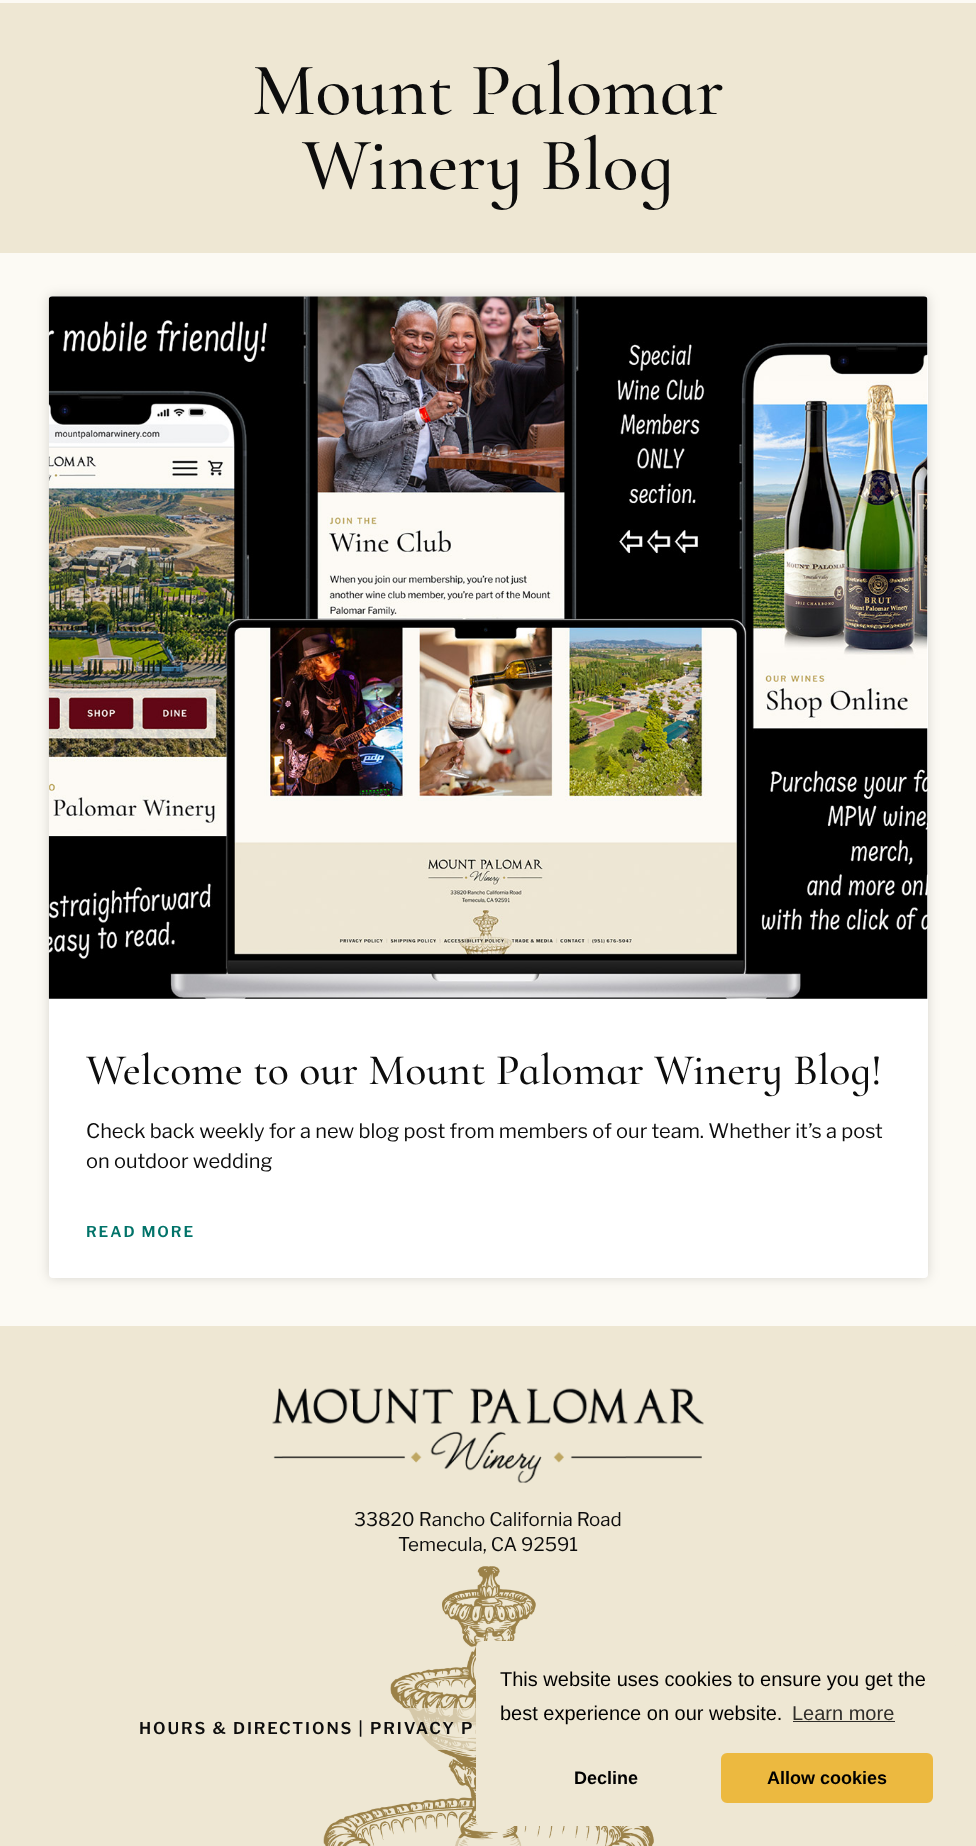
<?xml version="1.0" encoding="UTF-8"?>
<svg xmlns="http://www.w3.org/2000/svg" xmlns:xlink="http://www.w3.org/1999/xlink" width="976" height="1846">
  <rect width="100%" height="100%" fill="#fcfaf4" />
  <rect y="3" width="976" height="250" fill="#eee7d3" />
  <rect x="49" y="296" width="879" height="982" rx="4" fill="#000000" fill-opacity="0.15" filter="blur(6px)" />
  <rect x="49" y="296" width="879" height="982" rx="4" fill="#ffffff" />
  <image x="48" y="296" width="880" height="703" xlink:href="image1.png" />
  <rect y="1326" width="976" height="520" fill="#eee7d3" />
  <image x="323" y="1566" width="331" height="280" xlink:href="image2.png" />
  <image x="272" y="1388" width="432" height="95" xlink:href="image3.png" />
  <rect x="404" y="1708" width="72" height="42" fill="#eee7d3" fill-opacity="0.7" />
  <rect x="455" y="1838" width="136" height="8" fill="#eee7d3" fill-opacity="0.7" />
  <rect x="476" y="1641" width="480" height="185" rx="6" fill="#eee7d3" />
  <rect x="793" y="1721" width="102" height="1" fill="#302e2a" />
  <rect x="722.5" y="1754.5" width="209" height="47" rx="4.5" fill="#ecb940" stroke="#ecb940" stroke-width="3" />
  <text x="252" y="114" style="font-family: Cormorant Infant; font-size: 75px; font-weight: 500; fill: #0d0d0d">Mount Palomar</text>
  <text x="302" y="189" style="font-family: Cormorant Infant; font-size: 75px; font-weight: 500; fill: #0d0d0d">Winery Blog</text>
  <text x="86" y="1084" style="font-family: Cormorant Infant; font-size: 43.75px; font-weight: 500; fill: #0d0d0d">Welcome to our Mount Palomar Winery Blog!</text>
  <text x="86" y="1138" style="font-family: Libre Franklin; font-size: 20px; fill: #0d0d0d">Check back weekly for a new blog post from members of our team. Whether it’s a post</text>
  <text x="86" y="1168" style="font-family: Libre Franklin; font-size: 20px; fill: #0d0d0d">on outdoor wedding</text>
  <text x="86" y="1237" style="font-family: Libre Franklin; font-size: 15px; font-weight: 600; letter-spacing: 1.9px; fill: #017369">READ MORE</text>
  <text x="354" y="1526" style="font-family: Libre Franklin; font-size: 18.75px; fill: #0d0d0d">33820 Rancho California Road</text>
  <text x="398" y="1551" style="font-family: Libre Franklin; font-size: 18.75px; fill: #0d0d0d">Temecula, CA 92591</text>
  <text x="139" y="1734" style="font-family: Libre Franklin; font-size: 16.25px; font-weight: 600; letter-spacing: 1.9px; fill: #0d0d0d">HOURS &amp; DIRECTIONS | PRIVACY P</text>
  <text x="500" y="1686" style="font-family: Liberation Sans; font-size: 20px; fill: #000000">This website uses cookies to ensure you get the</text>
  <text x="500" y="1720" style="font-family: Liberation Sans; font-size: 20px; fill: #000000">best experience on our website.</text>
  <text x="792" y="1720" style="font-family: Liberation Sans; font-size: 20px; fill: #302e2a">Learn more</text>
  <text x="574" y="1784" style="font-family: Liberation Sans; font-size: 18px; font-weight: bold; fill: #000000">Decline</text>
  <text x="767" y="1784" style="font-family: Liberation Sans; font-size: 18px; font-weight: bold; fill: #000000">Allow cookies</text>
</svg>
